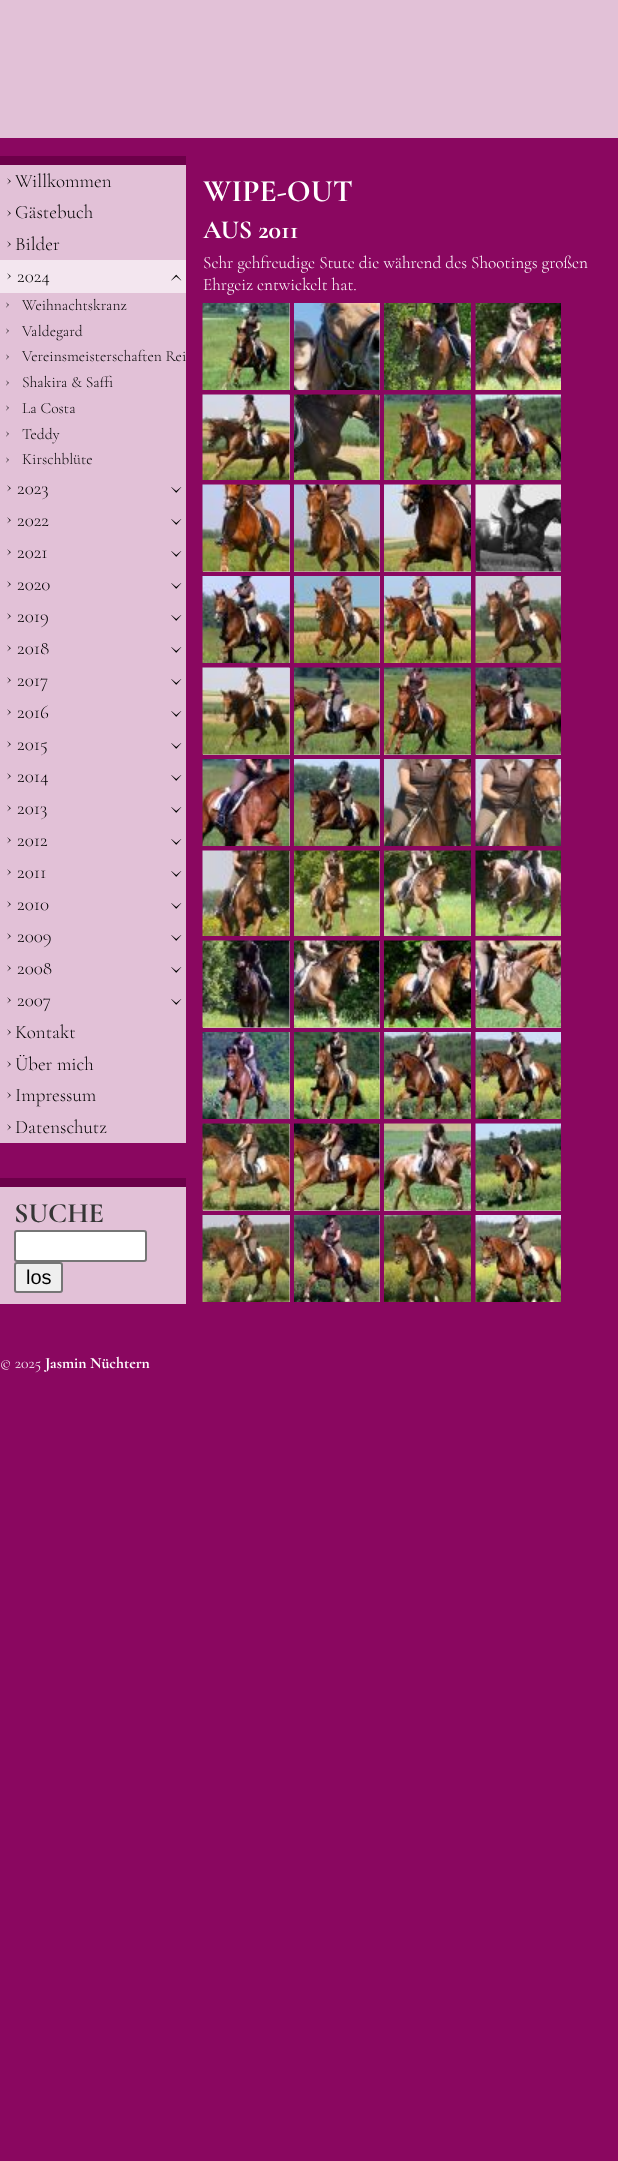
<?xml version="1.0" encoding="UTF-8"?>
<svg xmlns="http://www.w3.org/2000/svg" xmlns:xlink="http://www.w3.org/1999/xlink" width="618" height="2161">
  <rect width="100%" height="100%" fill="#8a0760" />
  <rect width="618" height="138" fill="#e2c1d7" />
  <rect y="165" width="186" height="978" fill="#e2c1d7" />
  <rect y="156" width="186" height="9" fill="#6c0049" />
  <rect y="260" width="186" height="33" fill="#f3e6ef" />
  <rect y="1187" width="186" height="117" fill="#e2c1d7" />
  <rect y="1178" width="186" height="9" fill="#6c0049" />
  <rect x="15" y="1231" width="131" height="30" rx="2" fill="#ffffff" stroke="#767676" stroke-width="2" />
  <rect x="15" y="1263" width="47" height="29" rx="2" fill="#efefef" stroke="#767676" stroke-width="2" />
  <rect x="289" y="303" width="1" height="87" fill="#e2c1d7" />
  <image x="202" y="303" width="88" height="87" xlink:href="image1.png" />
  <rect x="379" y="303" width="1" height="87" fill="#e2c1d7" />
  <image x="294" y="303" width="86" height="87" xlink:href="image2.png" />
  <image x="384" y="303" width="87" height="87" xlink:href="image3.png" />
  <image x="475" y="303" width="86" height="87" xlink:href="image4.png" />
  <rect x="289" y="395" width="1" height="85" fill="#e2c1d7" />
  <image x="202" y="394" width="88" height="86" xlink:href="image5.png" />
  <rect x="379" y="395" width="1" height="85" fill="#e2c1d7" />
  <image x="294" y="394" width="86" height="86" xlink:href="image6.png" />
  <image x="384" y="394" width="87" height="86" xlink:href="image7.png" />
  <image x="475" y="394" width="86" height="86" xlink:href="image8.png" />
  <rect x="203" y="485" width="87" height="87" fill="#e2c1d7" />
  <image x="202" y="484" width="88" height="88" xlink:href="image9.png" />
  <rect x="294" y="485" width="86" height="87" fill="#e2c1d7" />
  <image x="294" y="484" width="86" height="88" xlink:href="image10.png" />
  <rect x="384" y="571" width="87" height="1" fill="#e2c1d7" />
  <image x="384" y="484" width="87" height="88" xlink:href="image11.png" />
  <rect x="476" y="571" width="85" height="1" fill="#e2c1d7" />
  <image x="475" y="484" width="86" height="88" xlink:href="image12.png" />
  <rect x="289" y="576" width="1" height="87" fill="#e2c1d7" />
  <image x="202" y="576" width="88" height="87" xlink:href="image13.png" />
  <rect x="379" y="576" width="1" height="87" fill="#e2c1d7" />
  <image x="294" y="576" width="86" height="87" xlink:href="image14.png" />
  <image x="384" y="576" width="87" height="87" xlink:href="image15.png" />
  <image x="475" y="576" width="86" height="87" xlink:href="image16.png" />
  <rect x="203" y="668" width="87" height="87" fill="#e2c1d7" />
  <image x="202" y="667" width="88" height="88" xlink:href="image17.png" />
  <rect x="294" y="668" width="86" height="87" fill="#e2c1d7" />
  <image x="294" y="667" width="86" height="88" xlink:href="image18.png" />
  <rect x="384" y="754" width="87" height="1" fill="#e2c1d7" />
  <image x="384" y="667" width="87" height="88" xlink:href="image19.png" />
  <rect x="476" y="754" width="85" height="1" fill="#e2c1d7" />
  <image x="475" y="667" width="86" height="88" xlink:href="image20.png" />
  <rect x="289" y="759" width="1" height="87" fill="#e2c1d7" />
  <image x="202" y="759" width="88" height="87" xlink:href="image21.png" />
  <rect x="379" y="759" width="1" height="87" fill="#e2c1d7" />
  <image x="294" y="759" width="86" height="87" xlink:href="image22.png" />
  <image x="384" y="759" width="87" height="87" xlink:href="image23.png" />
  <image x="475" y="759" width="86" height="87" xlink:href="image24.png" />
  <rect x="289" y="851" width="1" height="85" fill="#e2c1d7" />
  <image x="202" y="850" width="88" height="86" xlink:href="image25.png" />
  <rect x="379" y="851" width="1" height="85" fill="#e2c1d7" />
  <image x="294" y="850" width="86" height="86" xlink:href="image26.png" />
  <image x="384" y="850" width="87" height="86" xlink:href="image27.png" />
  <image x="475" y="850" width="86" height="86" xlink:href="image28.png" />
  <rect x="203" y="941" width="87" height="87" fill="#e2c1d7" />
  <image x="202" y="940" width="88" height="88" xlink:href="image29.png" />
  <rect x="294" y="941" width="86" height="87" fill="#e2c1d7" />
  <image x="294" y="940" width="86" height="88" xlink:href="image30.png" />
  <rect x="384" y="1027" width="87" height="1" fill="#e2c1d7" />
  <image x="384" y="940" width="87" height="88" xlink:href="image31.png" />
  <rect x="476" y="1027" width="85" height="1" fill="#e2c1d7" />
  <image x="475" y="940" width="86" height="88" xlink:href="image32.png" />
  <rect x="289" y="1032" width="1" height="87" fill="#e2c1d7" />
  <image x="202" y="1032" width="88" height="87" xlink:href="image33.png" />
  <rect x="379" y="1032" width="1" height="87" fill="#e2c1d7" />
  <image x="294" y="1032" width="86" height="87" xlink:href="image34.png" />
  <image x="384" y="1032" width="87" height="87" xlink:href="image35.png" />
  <image x="475" y="1032" width="86" height="87" xlink:href="image36.png" />
  <rect x="203" y="1124" width="87" height="87" fill="#e2c1d7" />
  <image x="202" y="1123" width="88" height="88" xlink:href="image37.png" />
  <rect x="294" y="1124" width="86" height="87" fill="#e2c1d7" />
  <image x="294" y="1123" width="86" height="88" xlink:href="image38.png" />
  <rect x="384" y="1210" width="87" height="1" fill="#e2c1d7" />
  <image x="384" y="1123" width="87" height="88" xlink:href="image39.png" />
  <rect x="476" y="1210" width="85" height="1" fill="#e2c1d7" />
  <image x="475" y="1123" width="86" height="88" xlink:href="image40.png" />
  <rect x="289" y="1215" width="1" height="87" fill="#e2c1d7" />
  <image x="202" y="1215" width="88" height="87" xlink:href="image41.png" />
  <rect x="379" y="1215" width="1" height="87" fill="#e2c1d7" />
  <image x="294" y="1215" width="86" height="87" xlink:href="image42.png" />
  <image x="384" y="1215" width="87" height="87" xlink:href="image43.png" />
  <image x="475" y="1215" width="86" height="87" xlink:href="image44.png" />
  <text x="6" y="185" style="font-family: Cormorant Garamond; font-size: 19px; font-weight: 300; fill: #000000">›</text>
  <text x="15" y="187" style="font-family: Cormorant Garamond; font-size: 19px; font-weight: 300; fill: #000000">Willkommen</text>
  <text x="6" y="217" style="font-family: Cormorant Garamond; font-size: 19px; font-weight: 300; fill: #000000">›</text>
  <text x="15" y="218" style="font-family: Cormorant Garamond; font-size: 19px; font-weight: 300; fill: #000000">Gästebuch</text>
  <text x="6" y="248" style="font-family: Cormorant Garamond; font-size: 19px; font-weight: 300; fill: #000000">›</text>
  <text x="15" y="250" style="font-family: Cormorant Garamond; font-size: 19px; font-weight: 300; fill: #000000">Bilder</text>
  <text x="6" y="280" style="font-family: Cormorant Garamond; font-size: 19px; font-weight: 300; fill: #000000">›</text>
  <text x="17" y="282" style="font-family: Cormorant Garamond; font-size: 19px; font-weight: 300; fill: #000000">2024</text>
  <text x="170" y="273" transform="rotate(90 170 273)" style="font-family: Cormorant Garamond; font-size: 31px; font-weight: 300; fill: #000000">‹</text>
  <text x="5" y="308" style="font-family: Cormorant Garamond; font-size: 15.6px; font-weight: 300; fill: #000000">›</text>
  <text x="22" y="310" style="font-family: Cormorant Garamond; font-size: 15.6px; font-weight: 300; fill: #000000">Weihnachtskranz</text>
  <text x="5" y="334" style="font-family: Cormorant Garamond; font-size: 15.6px; font-weight: 300; fill: #000000">›</text>
  <text x="22" y="336" style="font-family: Cormorant Garamond; font-size: 15.6px; font-weight: 300; fill: #000000">Valdegard</text>
  <text x="5" y="360" style="font-family: Cormorant Garamond; font-size: 15.6px; font-weight: 300; fill: #000000">›</text>
  <text x="22" y="361" style="font-family: Cormorant Garamond; font-size: 15.6px; font-weight: 300; fill: #000000">Vereinsmeisterschaften Rei</text>
  <text x="5" y="386" style="font-family: Cormorant Garamond; font-size: 15.6px; font-weight: 300; fill: #000000">›</text>
  <text x="22" y="387" style="font-family: Cormorant Garamond; font-size: 15.6px; font-weight: 300; fill: #000000">Shakira &amp; Saffi</text>
  <text x="5" y="411" style="font-family: Cormorant Garamond; font-size: 15.6px; font-weight: 300; fill: #000000">›</text>
  <text x="22" y="413" style="font-family: Cormorant Garamond; font-size: 15.6px; font-weight: 300; fill: #000000">La Costa</text>
  <text x="5" y="437" style="font-family: Cormorant Garamond; font-size: 15.6px; font-weight: 300; fill: #000000">›</text>
  <text x="22" y="439" style="font-family: Cormorant Garamond; font-size: 15.6px; font-weight: 300; fill: #000000">Teddy</text>
  <text x="5" y="463" style="font-family: Cormorant Garamond; font-size: 15.6px; font-weight: 300; fill: #000000">›</text>
  <text x="22" y="464" style="font-family: Cormorant Garamond; font-size: 15.6px; font-weight: 300; fill: #000000">Kirschblüte</text>
  <text x="6" y="492" style="font-family: Cormorant Garamond; font-size: 19px; font-weight: 300; fill: #000000">›</text>
  <text x="17" y="494" style="font-family: Cormorant Garamond; font-size: 19px; font-weight: 300; fill: #000000">2023</text>
  <text x="170" y="485" transform="rotate(90 170 485)" style="font-family: Cormorant Garamond; font-size: 31px; font-weight: 300; fill: #000000">›</text>
  <text x="6" y="524" style="font-family: Cormorant Garamond; font-size: 19px; font-weight: 300; fill: #000000">›</text>
  <text x="17" y="526" style="font-family: Cormorant Garamond; font-size: 19px; font-weight: 300; fill: #000000">2022</text>
  <text x="170" y="517" transform="rotate(90 170 517)" style="font-family: Cormorant Garamond; font-size: 31px; font-weight: 300; fill: #000000">›</text>
  <text x="6" y="556" style="font-family: Cormorant Garamond; font-size: 19px; font-weight: 300; fill: #000000">›</text>
  <text x="17" y="558" style="font-family: Cormorant Garamond; font-size: 19px; font-weight: 300; fill: #000000">2021</text>
  <text x="170" y="549" transform="rotate(90 170 549)" style="font-family: Cormorant Garamond; font-size: 31px; font-weight: 300; fill: #000000">›</text>
  <text x="6" y="588" style="font-family: Cormorant Garamond; font-size: 19px; font-weight: 300; fill: #000000">›</text>
  <text x="17" y="590" style="font-family: Cormorant Garamond; font-size: 19px; font-weight: 300; fill: #000000">2020</text>
  <text x="170" y="581" transform="rotate(90 170 581)" style="font-family: Cormorant Garamond; font-size: 31px; font-weight: 300; fill: #000000">›</text>
  <text x="6" y="620" style="font-family: Cormorant Garamond; font-size: 19px; font-weight: 300; fill: #000000">›</text>
  <text x="17" y="622" style="font-family: Cormorant Garamond; font-size: 19px; font-weight: 300; fill: #000000">2019</text>
  <text x="170" y="613" transform="rotate(90 170 613)" style="font-family: Cormorant Garamond; font-size: 31px; font-weight: 300; fill: #000000">›</text>
  <text x="6" y="652" style="font-family: Cormorant Garamond; font-size: 19px; font-weight: 300; fill: #000000">›</text>
  <text x="17" y="654" style="font-family: Cormorant Garamond; font-size: 19px; font-weight: 300; fill: #000000">2018</text>
  <text x="170" y="645" transform="rotate(90 170 645)" style="font-family: Cormorant Garamond; font-size: 31px; font-weight: 300; fill: #000000">›</text>
  <text x="6" y="684" style="font-family: Cormorant Garamond; font-size: 19px; font-weight: 300; fill: #000000">›</text>
  <text x="17" y="686" style="font-family: Cormorant Garamond; font-size: 19px; font-weight: 300; fill: #000000">2017</text>
  <text x="170" y="677" transform="rotate(90 170 677)" style="font-family: Cormorant Garamond; font-size: 31px; font-weight: 300; fill: #000000">›</text>
  <text x="6" y="716" style="font-family: Cormorant Garamond; font-size: 19px; font-weight: 300; fill: #000000">›</text>
  <text x="17" y="718" style="font-family: Cormorant Garamond; font-size: 19px; font-weight: 300; fill: #000000">2016</text>
  <text x="170" y="709" transform="rotate(90 170 709)" style="font-family: Cormorant Garamond; font-size: 31px; font-weight: 300; fill: #000000">›</text>
  <text x="6" y="748" style="font-family: Cormorant Garamond; font-size: 19px; font-weight: 300; fill: #000000">›</text>
  <text x="17" y="750" style="font-family: Cormorant Garamond; font-size: 19px; font-weight: 300; fill: #000000">2015</text>
  <text x="170" y="741" transform="rotate(90 170 741)" style="font-family: Cormorant Garamond; font-size: 31px; font-weight: 300; fill: #000000">›</text>
  <text x="6" y="780" style="font-family: Cormorant Garamond; font-size: 19px; font-weight: 300; fill: #000000">›</text>
  <text x="17" y="782" style="font-family: Cormorant Garamond; font-size: 19px; font-weight: 300; fill: #000000">2014</text>
  <text x="170" y="773" transform="rotate(90 170 773)" style="font-family: Cormorant Garamond; font-size: 31px; font-weight: 300; fill: #000000">›</text>
  <text x="6" y="812" style="font-family: Cormorant Garamond; font-size: 19px; font-weight: 300; fill: #000000">›</text>
  <text x="17" y="814" style="font-family: Cormorant Garamond; font-size: 19px; font-weight: 300; fill: #000000">2013</text>
  <text x="170" y="805" transform="rotate(90 170 805)" style="font-family: Cormorant Garamond; font-size: 31px; font-weight: 300; fill: #000000">›</text>
  <text x="6" y="844" style="font-family: Cormorant Garamond; font-size: 19px; font-weight: 300; fill: #000000">›</text>
  <text x="17" y="846" style="font-family: Cormorant Garamond; font-size: 19px; font-weight: 300; fill: #000000">2012</text>
  <text x="170" y="837" transform="rotate(90 170 837)" style="font-family: Cormorant Garamond; font-size: 31px; font-weight: 300; fill: #000000">›</text>
  <text x="6" y="876" style="font-family: Cormorant Garamond; font-size: 19px; font-weight: 300; fill: #000000">›</text>
  <text x="17" y="878" style="font-family: Cormorant Garamond; font-size: 19px; font-weight: 300; fill: #000000">2011</text>
  <text x="170" y="869" transform="rotate(90 170 869)" style="font-family: Cormorant Garamond; font-size: 31px; font-weight: 300; fill: #000000">›</text>
  <text x="6" y="908" style="font-family: Cormorant Garamond; font-size: 19px; font-weight: 300; fill: #000000">›</text>
  <text x="17" y="910" style="font-family: Cormorant Garamond; font-size: 19px; font-weight: 300; fill: #000000">2010</text>
  <text x="170" y="901" transform="rotate(90 170 901)" style="font-family: Cormorant Garamond; font-size: 31px; font-weight: 300; fill: #000000">›</text>
  <text x="6" y="940" style="font-family: Cormorant Garamond; font-size: 19px; font-weight: 300; fill: #000000">›</text>
  <text x="17" y="942" style="font-family: Cormorant Garamond; font-size: 19px; font-weight: 300; fill: #000000">2009</text>
  <text x="170" y="933" transform="rotate(90 170 933)" style="font-family: Cormorant Garamond; font-size: 31px; font-weight: 300; fill: #000000">›</text>
  <text x="6" y="972" style="font-family: Cormorant Garamond; font-size: 19px; font-weight: 300; fill: #000000">›</text>
  <text x="17" y="974" style="font-family: Cormorant Garamond; font-size: 19px; font-weight: 300; fill: #000000">2008</text>
  <text x="170" y="965" transform="rotate(90 170 965)" style="font-family: Cormorant Garamond; font-size: 31px; font-weight: 300; fill: #000000">›</text>
  <text x="6" y="1004" style="font-family: Cormorant Garamond; font-size: 19px; font-weight: 300; fill: #000000">›</text>
  <text x="17" y="1006" style="font-family: Cormorant Garamond; font-size: 19px; font-weight: 300; fill: #000000">2007</text>
  <text x="170" y="997" transform="rotate(90 170 997)" style="font-family: Cormorant Garamond; font-size: 31px; font-weight: 300; fill: #000000">›</text>
  <text x="6" y="1036" style="font-family: Cormorant Garamond; font-size: 19px; font-weight: 300; fill: #000000">›</text>
  <text x="15" y="1038" style="font-family: Cormorant Garamond; font-size: 19px; font-weight: 300; fill: #000000">Kontakt</text>
  <text x="6" y="1068" style="font-family: Cormorant Garamond; font-size: 19px; font-weight: 300; fill: #000000">›</text>
  <text x="15" y="1070" style="font-family: Cormorant Garamond; font-size: 19px; font-weight: 300; fill: #000000">Über mich</text>
  <text x="6" y="1099" style="font-family: Cormorant Garamond; font-size: 19px; font-weight: 300; fill: #000000">›</text>
  <text x="15" y="1101" style="font-family: Cormorant Garamond; font-size: 19px; font-weight: 300; fill: #000000">Impressum</text>
  <text x="6" y="1131" style="font-family: Cormorant Garamond; font-size: 19px; font-weight: 300; fill: #000000">›</text>
  <text x="15" y="1133" style="font-family: Cormorant Garamond; font-size: 19px; font-weight: 300; fill: #000000">Datenschutz</text>
  <text x="14" y="1222" style="font-family: Cormorant Garamond; font-size: 28px; font-weight: bold; fill: #353535">SUCHE</text>
  <text x="26" y="1284" style="font-family: Liberation Sans; font-size: 20px; fill: #000000">los</text>
  <text x="203" y="201" style="font-family: Cormorant Garamond; font-size: 31.25px; font-weight: bold; fill: #ffffff">WIPE-OUT</text>
  <text x="203" y="238" style="font-family: Cormorant Garamond; font-size: 26px; font-weight: bold; fill: #ffffff">AUS 2011</text>
  <text x="203" y="268" style="font-family: Cormorant Garamond; font-size: 17.3px; font-weight: 300; fill: #ffffff">Sehr gehfreudige Stute die während des Shootings großen</text>
  <text x="203" y="290" style="font-family: Cormorant Garamond; font-size: 17.3px; font-weight: 300; fill: #ffffff">Ehrgeiz entwickelt hat.</text>
  <text x="0" y="1368" style="font-family: Cormorant Garamond; font-size: 15.6px; font-weight: 300; fill: #ffffff">© 2025</text>
  <text x="45" y="1368" style="font-family: Cormorant Garamond; font-size: 15.6px; font-weight: bold; fill: #ffffff">Jasmin Nüchtern</text>
</svg>
